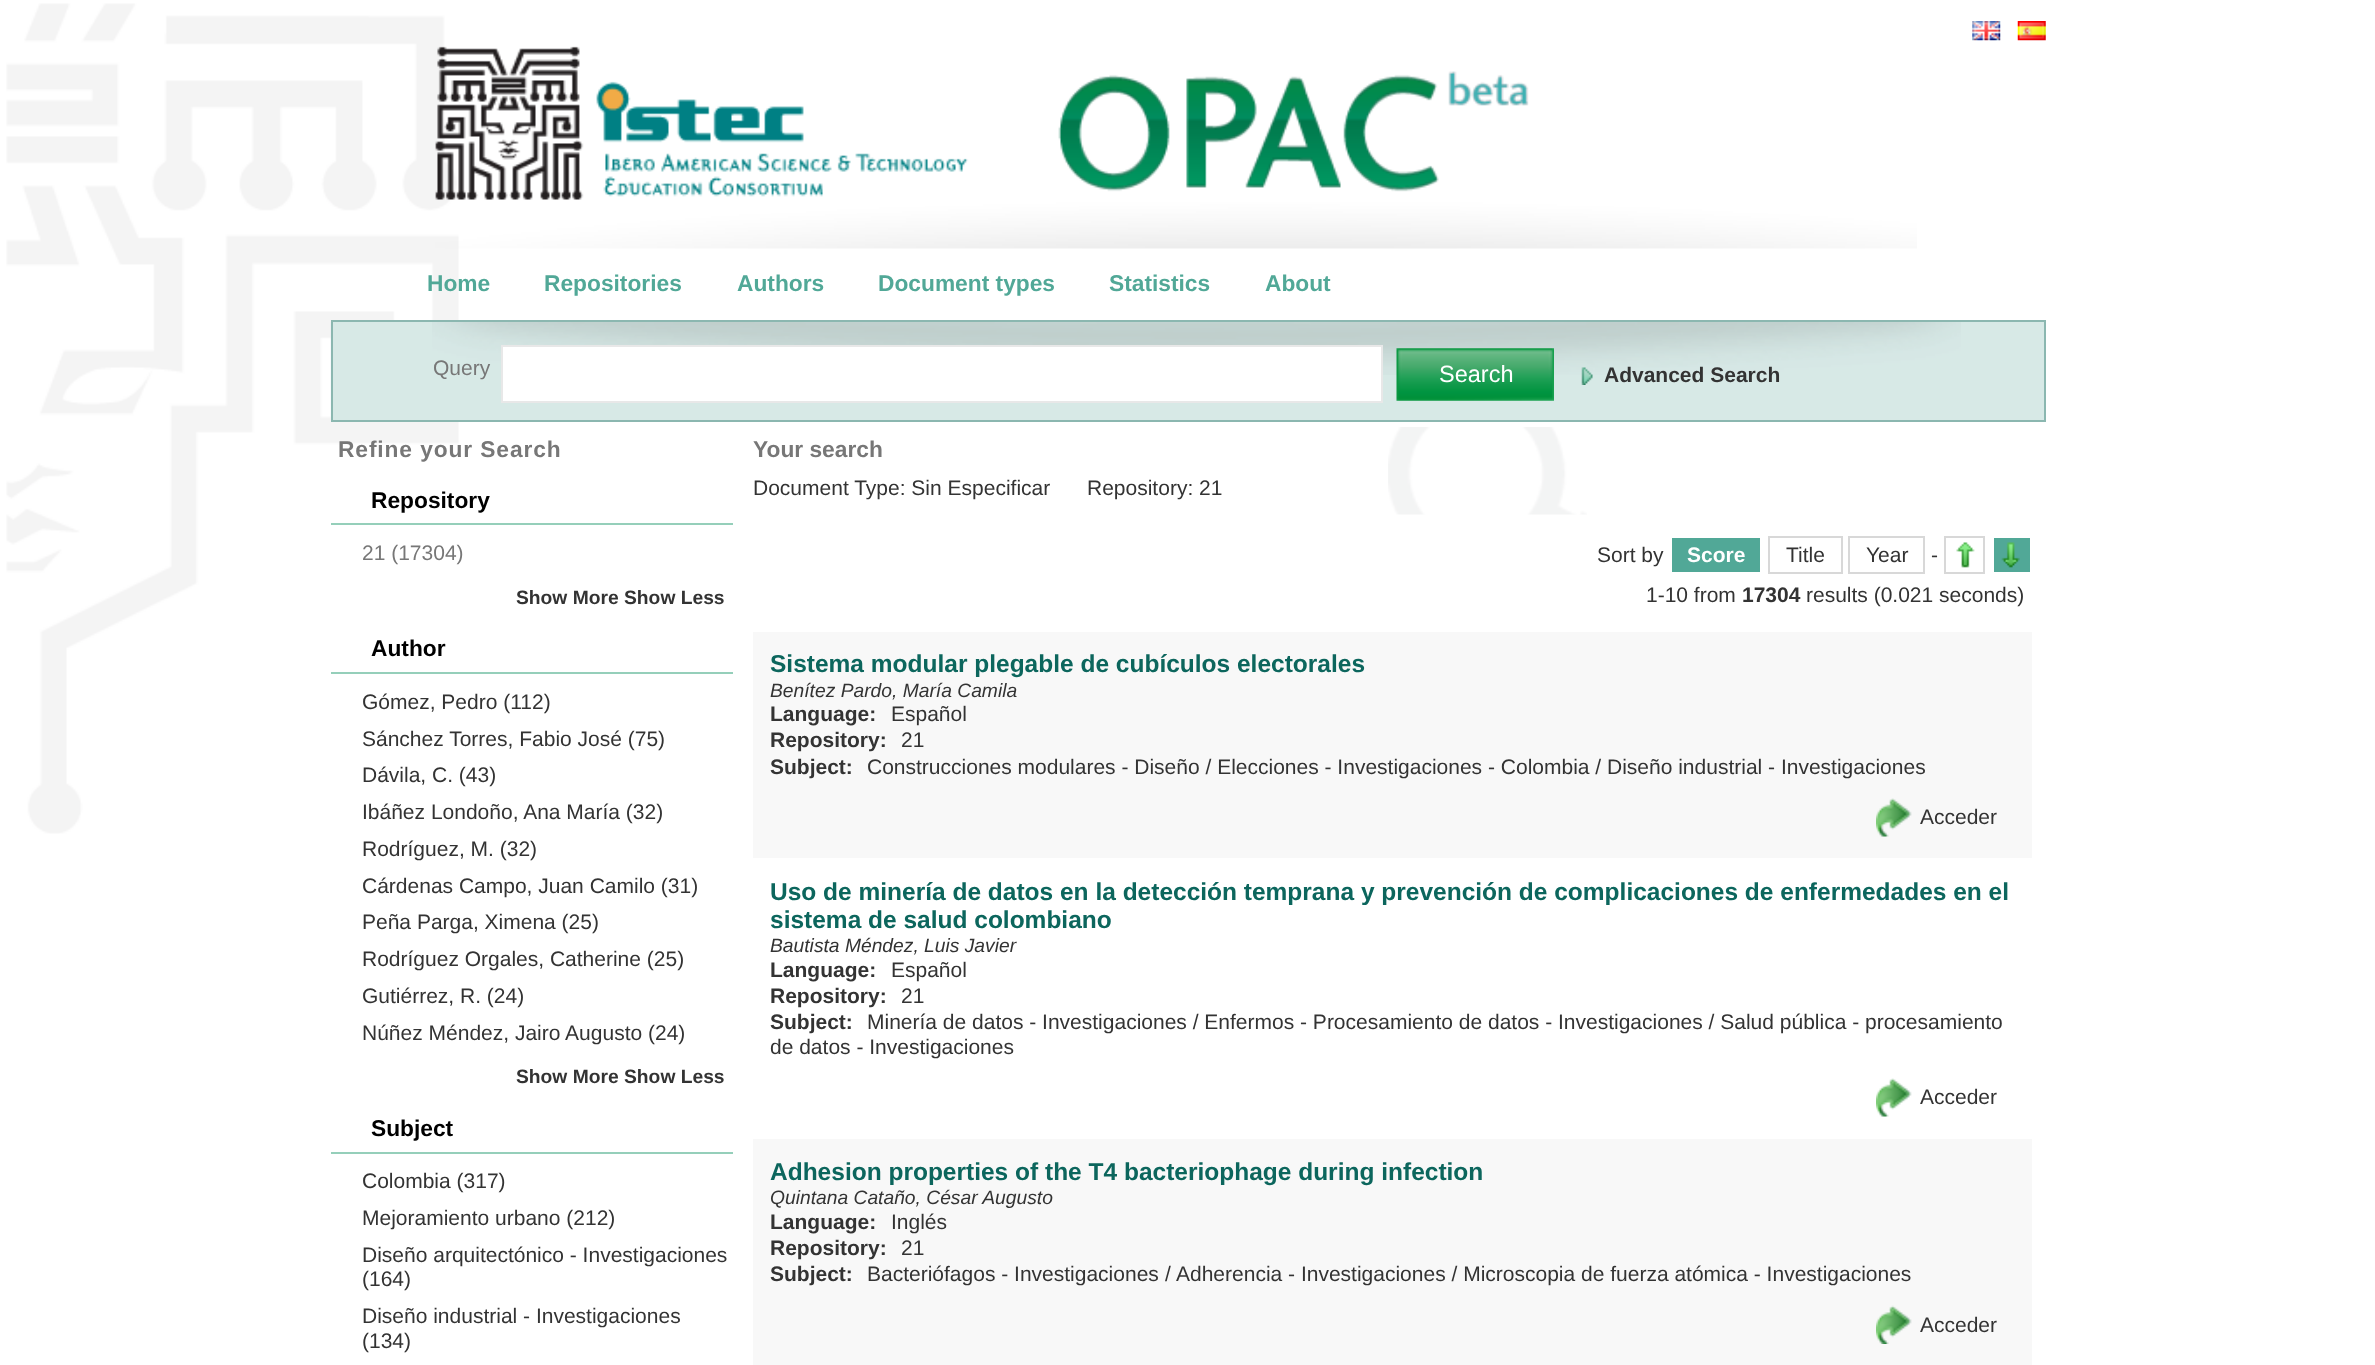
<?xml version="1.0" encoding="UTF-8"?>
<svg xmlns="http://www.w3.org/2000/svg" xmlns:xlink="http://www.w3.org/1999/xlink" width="2375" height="1365">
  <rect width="100%" height="100%" fill="#ffffff" />
  <image x="6" y="3" width="453" height="831" xlink:href="image1.png" />
  <image x="435" y="46" width="1482" height="203" xlink:href="image2.png" />
  <image x="1972" y="21" width="29" height="20" xlink:href="image3.png" />
  <image x="2017" y="21" width="29" height="20" xlink:href="image4.png" />
  <image x="330" y="322" width="1" height="96" xlink:href="image5.png" />
  <rect x="333" y="322" width="1711" height="98" fill="#d7e9e6" />
  <image x="432" y="322" width="1529" height="53" xlink:href="image6.png" />
  <rect x="332" y="321" width="1713" height="100" fill="none" stroke="#8bb7b0" stroke-width="2" />
  <rect x="502" y="346" width="880" height="56" fill="#ffffff" stroke="#e8e8e8" stroke-width="2" />
  <image x="1396" y="348" width="158" height="53" xlink:href="image7.png" />
  <image x="1581" y="367" width="12" height="18" xlink:href="image8.png" />
  <rect x="331" y="523" width="402" height="2" fill="#95cfba" />
  <rect x="331" y="672" width="402" height="2" fill="#95cfba" />
  <rect x="331" y="1152" width="402" height="2" fill="#95cfba" />
  <image x="1388" y="427" width="199" height="88" xlink:href="image9.png" />
  <image x="1956" y="542" width="19" height="26" xlink:href="image10.png" />
  <rect x="1945" y="537" width="39" height="36" fill="none" stroke="#d8d8d8" stroke-width="2" />
  <rect x="1994" y="538" width="36" height="34" fill="#51a897" />
  <rect x="1672" y="538" width="88" height="34" fill="#51a897" />
  <rect x="1769" y="537" width="73" height="36" fill="none" stroke="#d8d8d8" stroke-width="2" />
  <rect x="1849" y="537" width="75" height="36" fill="none" stroke="#d8d8d8" stroke-width="2" />
  <image x="2001" y="542" width="19" height="26" xlink:href="image11.png" />
  <rect x="753" y="632" width="1279" height="226" fill="#f8f8f8" />
  <image x="1876" y="798" width="36" height="39" xlink:href="image12.png" />
  <image x="1876" y="1078" width="36" height="39" xlink:href="image13.png" />
  <rect x="753" y="1139" width="1279" height="226" fill="#f8f8f8" />
  <image x="1876" y="1305" width="36" height="39" xlink:href="image14.png" />
  <text x="427" y="291" style="font-family: Liberation Sans; font-size: 22.75px; font-weight: bold; fill: #51a897">Home</text>
  <text x="544" y="291" style="font-family: Liberation Sans; font-size: 22.75px; font-weight: bold; fill: #51a897">Repositories</text>
  <text x="737" y="291" style="font-family: Liberation Sans; font-size: 22.75px; font-weight: bold; fill: #51a897">Authors</text>
  <text x="878" y="291" style="font-family: Liberation Sans; font-size: 22.75px; font-weight: bold; fill: #51a897">Document types</text>
  <text x="1109" y="291" style="font-family: Liberation Sans; font-size: 22.75px; font-weight: bold; fill: #51a897">Statistics</text>
  <text x="1265" y="291" style="font-family: Liberation Sans; font-size: 22.75px; font-weight: bold; fill: #51a897">About</text>
  <text x="433" y="375" style="font-family: Liberation Sans; font-size: 21px; fill: #777777">Query</text>
  <text x="1439" y="382" style="font-family: Liberation Sans; font-size: 23.5px; fill: #ffffff">Search</text>
  <text x="1604" y="382" style="font-family: Liberation Sans; font-size: 21px; font-weight: bold; fill: #333333">Advanced Search</text>
  <text x="338" y="457" style="font-family: Liberation Sans; font-size: 22.75px; font-weight: bold; letter-spacing: 0.9px; fill: #777777">Refine your Search</text>
  <text x="371" y="508" style="font-family: Liberation Sans; font-size: 22.75px; font-weight: bold; fill: #000000">Repository</text>
  <text x="362" y="560" style="font-family: Liberation Sans; font-size: 21px; fill: #777777">21 (17304)</text>
  <text x="516" y="604" style="font-family: Liberation Sans; font-size: 19.25px; font-weight: bold; fill: #333333">Show More Show Less</text>
  <text x="371" y="656" style="font-family: Liberation Sans; font-size: 22.75px; font-weight: bold; fill: #000000">Author</text>
  <text x="362" y="709" style="font-family: Liberation Sans; font-size: 21px; fill: #333333">Gómez, Pedro (112)</text>
  <text x="362" y="746" style="font-family: Liberation Sans; font-size: 21px; fill: #333333">Sánchez Torres, Fabio José (75)</text>
  <text x="362" y="782" style="font-family: Liberation Sans; font-size: 21px; fill: #333333">Dávila, C. (43)</text>
  <text x="362" y="819" style="font-family: Liberation Sans; font-size: 21px; fill: #333333">Ibáñez Londoño, Ana María (32)</text>
  <text x="362" y="856" style="font-family: Liberation Sans; font-size: 21px; fill: #333333">Rodríguez, M. (32)</text>
  <text x="362" y="893" style="font-family: Liberation Sans; font-size: 21px; fill: #333333">Cárdenas Campo, Juan Camilo (31)</text>
  <text x="362" y="929" style="font-family: Liberation Sans; font-size: 21px; fill: #333333">Peña Parga, Ximena (25)</text>
  <text x="362" y="966" style="font-family: Liberation Sans; font-size: 21px; fill: #333333">Rodríguez Orgales, Catherine (25)</text>
  <text x="362" y="1003" style="font-family: Liberation Sans; font-size: 21px; fill: #333333">Gutiérrez, R. (24)</text>
  <text x="362" y="1040" style="font-family: Liberation Sans; font-size: 21px; fill: #333333">Núñez Méndez, Jairo Augusto (24)</text>
  <text x="516" y="1083" style="font-family: Liberation Sans; font-size: 19.25px; font-weight: bold; fill: #333333">Show More Show Less</text>
  <text x="371" y="1136" style="font-family: Liberation Sans; font-size: 22.75px; font-weight: bold; fill: #000000">Subject</text>
  <text x="362" y="1188" style="font-family: Liberation Sans; font-size: 21px; fill: #333333">Colombia (317)</text>
  <text x="362" y="1225" style="font-family: Liberation Sans; font-size: 21px; fill: #333333">Mejoramiento urbano (212)</text>
  <text x="362" y="1262" style="font-family: Liberation Sans; font-size: 21px; fill: #333333">Diseño arquitectónico - Investigaciones</text>
  <text x="362" y="1286" style="font-family: Liberation Sans; font-size: 21px; fill: #333333">(164)</text>
  <text x="362" y="1323" style="font-family: Liberation Sans; font-size: 21px; fill: #333333">Diseño industrial - Investigaciones</text>
  <text x="362" y="1348" style="font-family: Liberation Sans; font-size: 21px; fill: #333333">(134)</text>
  <text x="753" y="457" style="font-family: Liberation Sans; font-size: 22.75px; font-weight: bold; fill: #777777">Your search</text>
  <text x="753" y="495" style="font-family: Liberation Sans; font-size: 21px; fill: #333333">Document Type: Sin Especificar</text>
  <text x="1087" y="495" style="font-family: Liberation Sans; font-size: 21px; fill: #333333">Repository: 21</text>
  <text x="1597" y="562" style="font-family: Liberation Sans; font-size: 21px; fill: #333333">Sort by</text>
  <text x="1687" y="562" style="font-family: Liberation Sans; font-size: 21px; font-weight: bold; fill: #ffffff">Score</text>
  <text x="1786" y="562" style="font-family: Liberation Sans; font-size: 21px; fill: #333333">Title</text>
  <text x="1866" y="562" style="font-family: Liberation Sans; font-size: 21px; fill: #333333">Year</text>
  <text x="1931" y="562" style="font-family: Liberation Sans; font-size: 21px; fill: #333333">-</text>
  <text x="1646" y="602" style="font-family: Liberation Sans; font-size: 21px; fill: #333333">1-10 from</text>
  <text x="1742" y="602" style="font-family: Liberation Sans; font-size: 21px; font-weight: bold; fill: #333333">17304</text>
  <text x="1806" y="602" style="font-family: Liberation Sans; font-size: 21px; fill: #333333">results (0.021 seconds)</text>
  <text x="770" y="672" style="font-family: Liberation Sans; font-size: 24.5px; font-weight: bold; fill: #0c665d">Sistema modular plegable de cubículos electorales</text>
  <text x="770" y="697" style="font-family: Liberation Sans; font-size: 19.25px; font-style: italic; fill: #333333">Benítez Pardo, María Camila</text>
  <text x="770" y="721" style="font-family: Liberation Sans; font-size: 21px; font-weight: bold; fill: #333333">Language:</text>
  <text x="891" y="721" style="font-family: Liberation Sans; font-size: 21px; fill: #333333">Español</text>
  <text x="770" y="747" style="font-family: Liberation Sans; font-size: 21px; font-weight: bold; fill: #333333">Repository:</text>
  <text x="901" y="747" style="font-family: Liberation Sans; font-size: 21px; fill: #333333">21</text>
  <text x="770" y="774" style="font-family: Liberation Sans; font-size: 21px; font-weight: bold; fill: #333333">Subject:</text>
  <text x="867" y="774" style="font-family: Liberation Sans; font-size: 21px; fill: #333333">Construcciones modulares - Diseño / Elecciones - Investigaciones - Colombia / Diseño industrial - Investigaciones</text>
  <text x="1920" y="824" style="font-family: Liberation Sans; font-size: 21px; fill: #333333">Acceder</text>
  <text x="770" y="900" style="font-family: Liberation Sans; font-size: 24.5px; font-weight: bold; fill: #0c665d">Uso de minería de datos en la detección temprana y prevención de complicaciones de enfermedades en el</text>
  <text x="770" y="928" style="font-family: Liberation Sans; font-size: 24.5px; font-weight: bold; fill: #0c665d">sistema de salud colombiano</text>
  <text x="770" y="952" style="font-family: Liberation Sans; font-size: 19.25px; font-style: italic; fill: #333333">Bautista Méndez, Luis Javier</text>
  <text x="770" y="977" style="font-family: Liberation Sans; font-size: 21px; font-weight: bold; fill: #333333">Language:</text>
  <text x="891" y="977" style="font-family: Liberation Sans; font-size: 21px; fill: #333333">Español</text>
  <text x="770" y="1003" style="font-family: Liberation Sans; font-size: 21px; font-weight: bold; fill: #333333">Repository:</text>
  <text x="901" y="1003" style="font-family: Liberation Sans; font-size: 21px; fill: #333333">21</text>
  <text x="770" y="1029" style="font-family: Liberation Sans; font-size: 21px; font-weight: bold; fill: #333333">Subject:</text>
  <text x="867" y="1029" style="font-family: Liberation Sans; font-size: 21px; fill: #333333">Minería de datos - Investigaciones / Enfermos - Procesamiento de datos - Investigaciones / Salud pública - procesamiento</text>
  <text x="770" y="1054" style="font-family: Liberation Sans; font-size: 21px; fill: #333333">de datos - Investigaciones</text>
  <text x="1920" y="1104" style="font-family: Liberation Sans; font-size: 21px; fill: #333333">Acceder</text>
  <text x="770" y="1180" style="font-family: Liberation Sans; font-size: 24.5px; font-weight: bold; fill: #0c665d">Adhesion properties of the T4 bacteriophage during infection</text>
  <text x="770" y="1204" style="font-family: Liberation Sans; font-size: 19.25px; font-style: italic; fill: #333333">Quintana Cataño, César Augusto</text>
  <text x="770" y="1229" style="font-family: Liberation Sans; font-size: 21px; font-weight: bold; fill: #333333">Language:</text>
  <text x="891" y="1229" style="font-family: Liberation Sans; font-size: 21px; fill: #333333">Inglés</text>
  <text x="770" y="1255" style="font-family: Liberation Sans; font-size: 21px; font-weight: bold; fill: #333333">Repository:</text>
  <text x="901" y="1255" style="font-family: Liberation Sans; font-size: 21px; fill: #333333">21</text>
  <text x="770" y="1281" style="font-family: Liberation Sans; font-size: 21px; font-weight: bold; fill: #333333">Subject:</text>
  <text x="867" y="1281" style="font-family: Liberation Sans; font-size: 21px; fill: #333333">Bacteriófagos - Investigaciones</text>
  <text x="1165" y="1281" style="font-family: Liberation Sans; font-size: 21px; fill: #333333">/</text>
  <text x="1176" y="1281" style="font-family: Liberation Sans; font-size: 21px; fill: #333333">Adherencia - Investigaciones / Microscopia de fuerza atómica - Investigaciones</text>
  <text x="1920" y="1332" style="font-family: Liberation Sans; font-size: 21px; fill: #333333">Acceder</text>
</svg>
